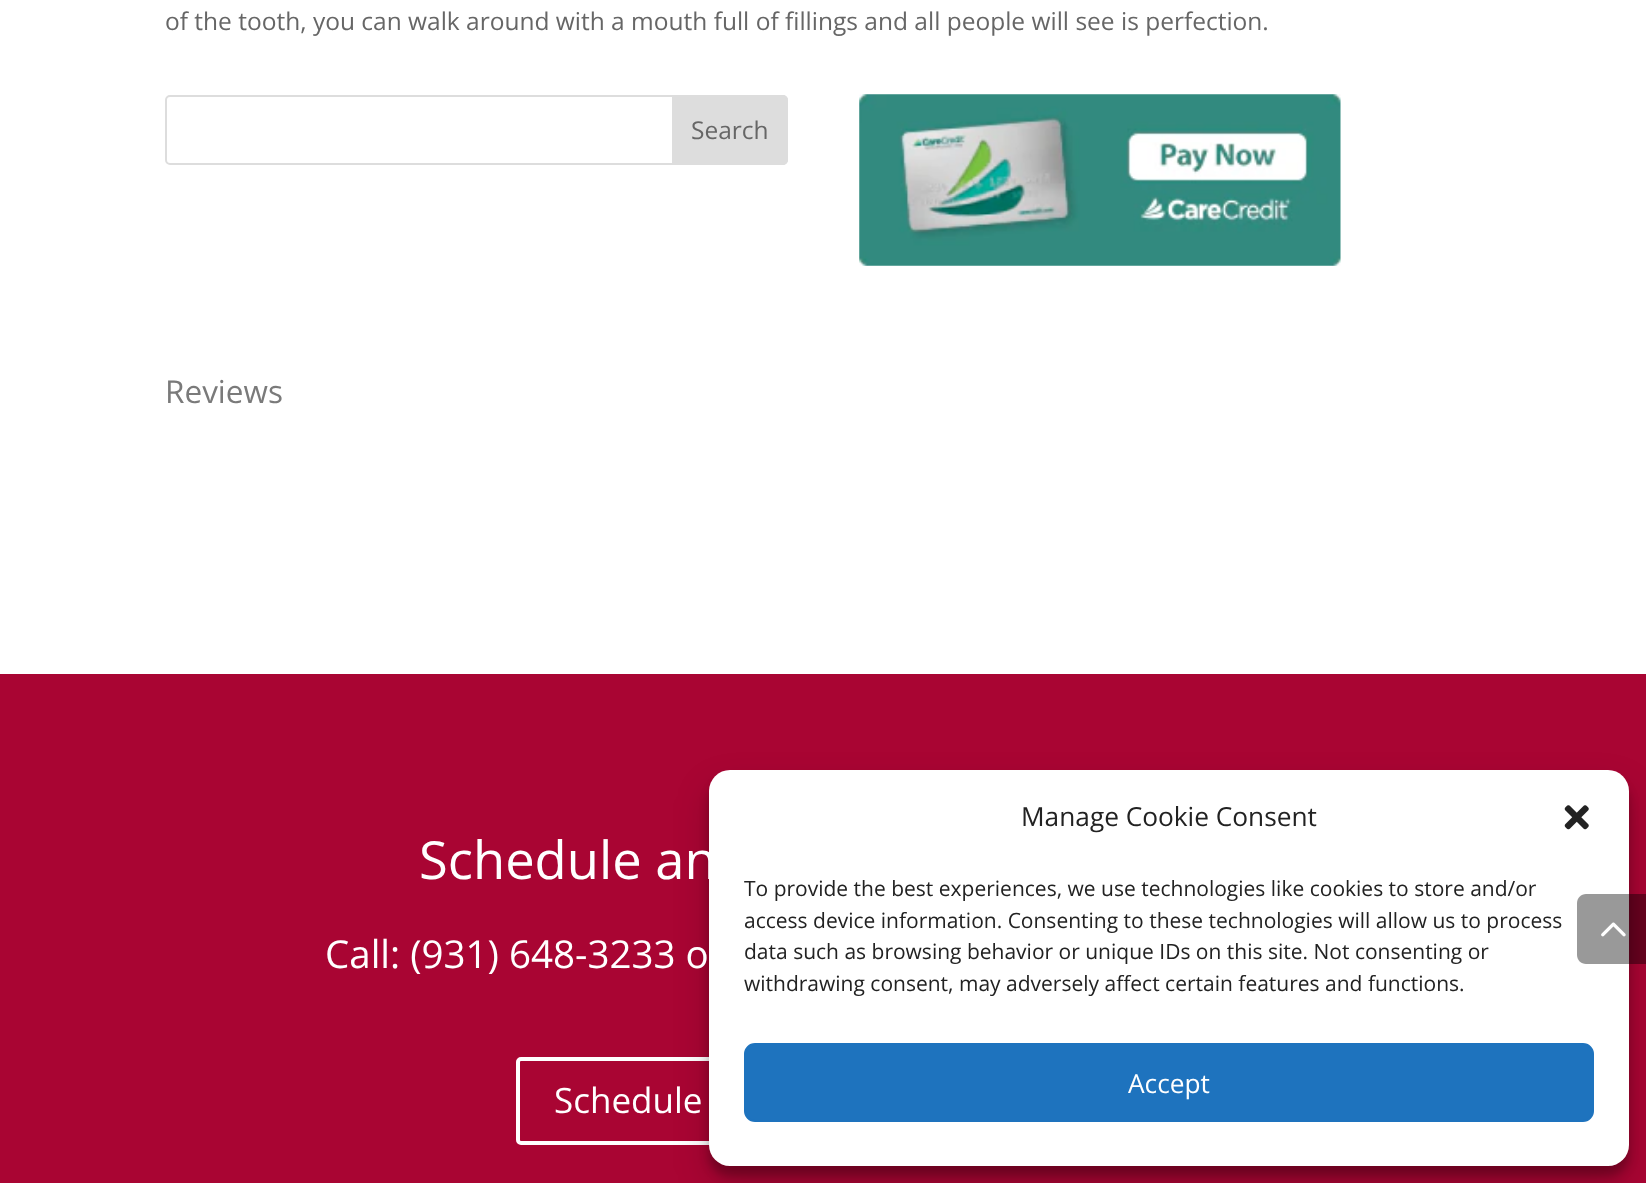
<?xml version="1.0" encoding="UTF-8"?>
<svg xmlns="http://www.w3.org/2000/svg" xmlns:xlink="http://www.w3.org/1999/xlink" width="1646" height="1183">
  <rect width="100%" height="100%" fill="#ffffff" />
  <rect x="166" y="96" width="621" height="68" rx="4" fill="none" stroke="#dddddd" stroke-width="2" />
  <path d="M 673 96 h 110 c 2 0 4 2 4 4 v 60 c 0 2 -2 4 -4 4 h -110 z" fill="#dddddd" stroke="#dddddd" stroke-width="2" />
  <image x="859" y="94" width="482" height="172" xlink:href="image1.png" />
  <rect y="674" width="1646" height="509" fill="#a90533" />
  <rect x="518" y="1059" width="611" height="84" rx="3" fill="none" stroke="#ffffff" stroke-width="4" />
  <rect x="709" y="781" width="920" height="395" rx="21" fill="#000000" fill-opacity="0.23" filter="blur(5px)" />
  <rect x="709" y="788" width="920" height="395" rx="21" fill="#000000" fill-opacity="0.19" filter="blur(17.5px)" />
  <rect x="709" y="770" width="920" height="396" rx="21" fill="#ffffff" />
  <image x="1564" y="805" width="25" height="25" xlink:href="image2.png" />
  <rect x="745" y="1044" width="848" height="77" rx="10" fill="#1e73be" stroke="#1e73be" stroke-width="2" />
  <path d="M 1586 894 h 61 v 70 h -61 c -5 0 -9 -4 -9 -9 v -52 c 0 -5 4 -9 9 -9 z" fill="#000000" fill-opacity="0.4" />
  <image x="1601" y="922" width="25" height="15" xlink:href="image3.png" />
  <text x="165" y="30" style="font-family: Open Sans; font-size: 24.5px; fill: #666666">of the tooth, you can walk around with a mouth full of fillings and all people will see is perfection.</text>
  <text x="691" y="139" style="font-family: Open Sans; font-size: 24.5px; fill: #666666">Search</text>
  <text x="165" y="403" style="font-family: Open Sans; font-size: 31.5px; fill: #7a7a7a">Reviews</text>
  <text x="419" y="879" style="font-family: Open Sans; font-size: 52.5px; fill: #ffffff">Schedule an</text>
  <text x="325" y="968" style="font-family: Open Sans; font-size: 38.5px; fill: #ffffff">Call: (931) 648-3233 o</text>
  <text x="554" y="1113" style="font-family: Open Sans; font-size: 35px; fill: #ffffff">Schedule</text>
  <text x="1021" y="826" style="font-family: Open Sans; font-size: 26.25px; fill: #222222">Manage Cookie Consent</text>
  <text x="744" y="896" style="font-family: Open Sans; font-size: 21px; fill: #222222">To provide the best experiences, we use technologies like cookies to store and/or</text>
  <text x="744" y="928" style="font-family: Open Sans; font-size: 21px; fill: #222222">access device information. Consenting to these technologies will allow us to process</text>
  <text x="744" y="959" style="font-family: Open Sans; font-size: 21px; fill: #222222">data such as browsing behavior or unique IDs on this site. Not consenting or</text>
  <text x="744" y="991" style="font-family: Open Sans; font-size: 21px; fill: #222222">withdrawing consent, may adversely affect certain features and functions.</text>
  <text x="1128" y="1093" style="font-family: Open Sans; font-size: 26.25px; fill: #ffffff">Accept</text>
</svg>
